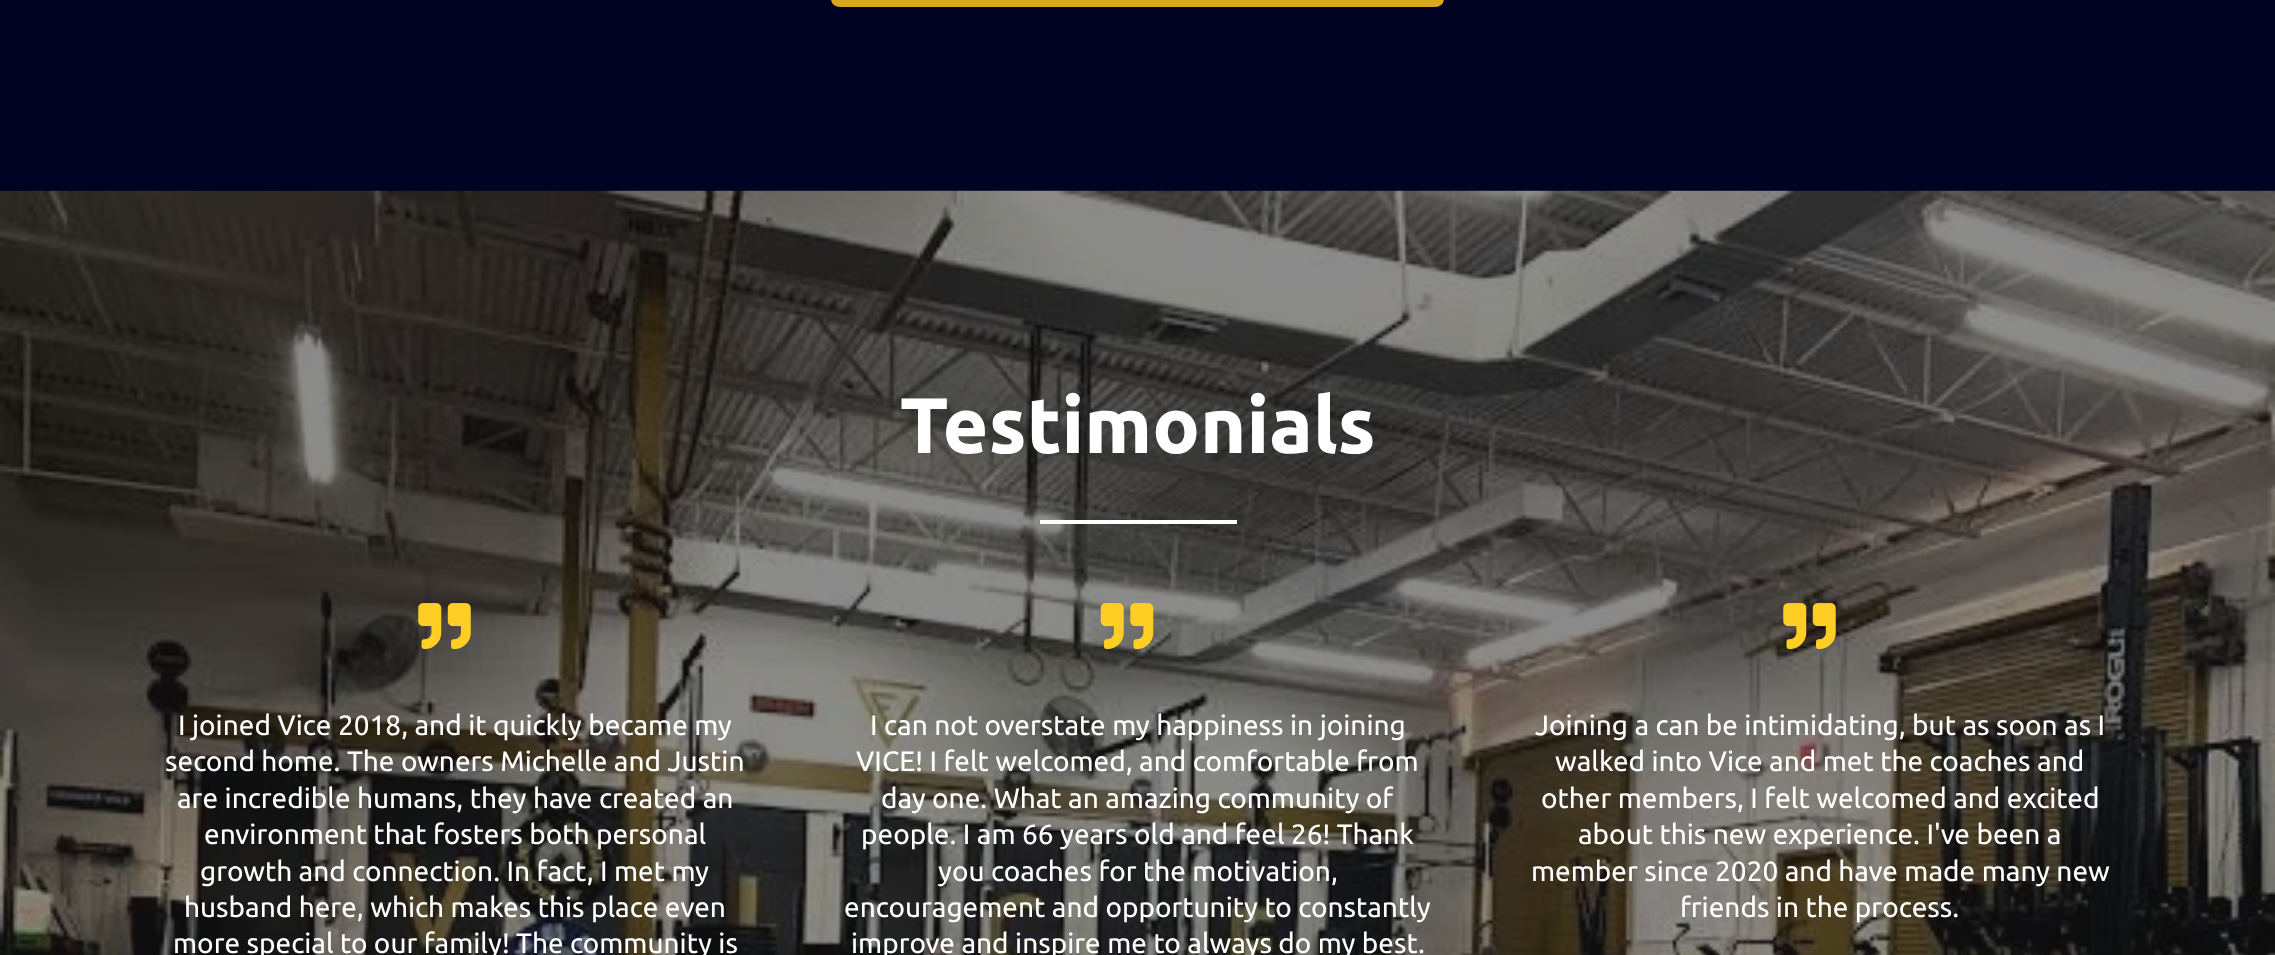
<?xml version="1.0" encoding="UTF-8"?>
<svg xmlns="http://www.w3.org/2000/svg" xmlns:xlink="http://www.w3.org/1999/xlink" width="2275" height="955">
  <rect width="100%" height="100%" fill="#000321" />
  <rect x="831" y="-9" width="613" height="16" rx="9" fill="#daa520" />
  <rect y="191" width="2275" height="764" fill="#191919" />
  <image x="0" y="190" width="2275" height="765" xlink:href="image1.png" />
  <rect x="1040" y="520" width="197" height="4" fill="#ffffff" />
  <image x="418" y="603" width="53" height="46" xlink:href="image2.png" />
  <image x="1100" y="603" width="54" height="46" xlink:href="image3.png" />
  <image x="1783" y="603" width="53" height="46" xlink:href="image4.png" />
  <text x="900" y="453" style="font-family: Ubuntu; font-size: 78.75px; font-weight: bold; fill: #ffffff">Testimonials</text>
  <text x="178" y="735" style="font-family: Ubuntu; font-size: 28px; fill: #ffffff">I joined Vice 2018, and it quickly became my</text>
  <text x="165" y="771" style="font-family: Ubuntu; font-size: 28px; fill: #ffffff">second home. The owners Michelle and Justin</text>
  <text x="177" y="808" style="font-family: Ubuntu; font-size: 28px; fill: #ffffff">are incredible humans, they have created an</text>
  <text x="204" y="844" style="font-family: Ubuntu; font-size: 28px; fill: #ffffff">environment that fosters both personal</text>
  <text x="200" y="881" style="font-family: Ubuntu; font-size: 28px; fill: #ffffff">growth and connection. In fact, I met my</text>
  <text x="184" y="917" style="font-family: Ubuntu; font-size: 28px; fill: #ffffff">husband here, which makes this place even</text>
  <text x="173" y="953" style="font-family: Ubuntu; font-size: 28px; fill: #ffffff">more special to our family! The community is</text>
  <text x="870" y="735" style="font-family: Ubuntu; font-size: 28px; fill: #ffffff">I can not overstate my happiness in joining</text>
  <text x="856" y="771" style="font-family: Ubuntu; font-size: 28px; fill: #ffffff">VICE! I felt welcomed, and comfortable from</text>
  <text x="881" y="808" style="font-family: Ubuntu; font-size: 28px; fill: #ffffff">day one. What an amazing community of</text>
  <text x="861" y="844" style="font-family: Ubuntu; font-size: 28px; fill: #ffffff">people. I am 66 years old and feel 26! Thank</text>
  <text x="938" y="881" style="font-family: Ubuntu; font-size: 28px; fill: #ffffff">you coaches for the motivation,</text>
  <text x="844" y="917" style="font-family: Ubuntu; font-size: 28px; fill: #ffffff">encouragement and opportunity to constantly</text>
  <text x="851" y="953" style="font-family: Ubuntu; font-size: 28px; fill: #ffffff">improve and inspire me to always do my best.</text>
  <text x="1535" y="735" style="font-family: Ubuntu; font-size: 28px; fill: #ffffff">Joining a can be intimidating, but as soon as I</text>
  <text x="1555" y="771" style="font-family: Ubuntu; font-size: 28px; fill: #ffffff">walked into Vice and met the coaches and</text>
  <text x="1541" y="808" style="font-family: Ubuntu; font-size: 28px; fill: #ffffff">other members, I felt welcomed and excited</text>
  <text x="1578" y="844" style="font-family: Ubuntu; font-size: 28px; fill: #ffffff">about this new experience. I've been a</text>
  <text x="1531" y="881" style="font-family: Ubuntu; font-size: 28px; fill: #ffffff">member since 2020 and have made many new</text>
  <text x="1680" y="917" style="font-family: Ubuntu; font-size: 28px; fill: #ffffff">friends in the process.</text>
</svg>
